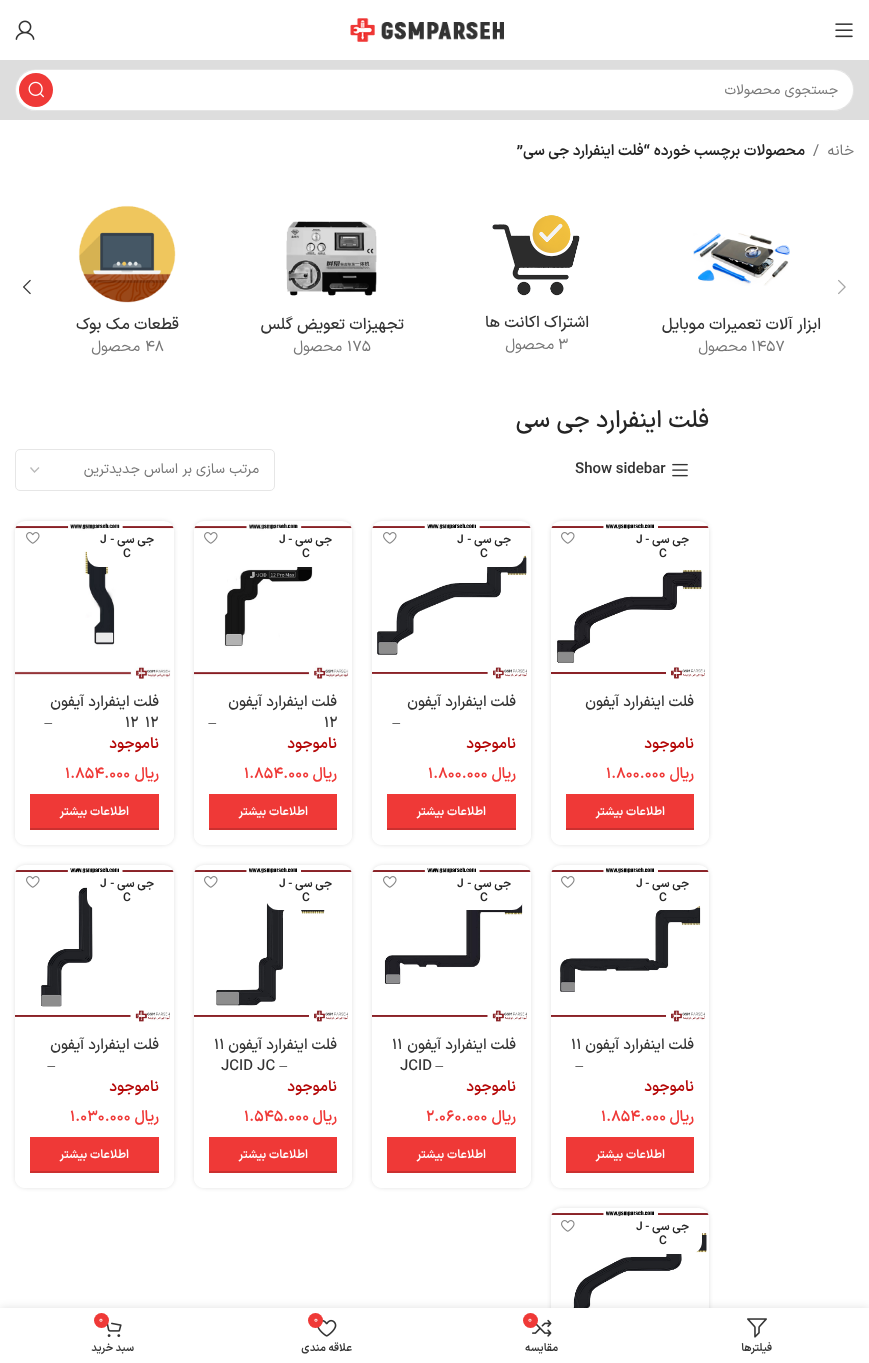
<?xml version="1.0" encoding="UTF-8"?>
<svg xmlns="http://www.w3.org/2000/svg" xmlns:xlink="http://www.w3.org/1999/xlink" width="869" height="1363">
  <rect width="100%" height="100%" fill="#ffffff" />
  <image x="835" y="23" width="18" height="15" xlink:href="image1.png" />
  <image x="350" y="18" width="154" height="24" xlink:href="image2.png" />
  <image x="15" y="20" width="20" height="20" xlink:href="image3.png" />
  <rect y="60" width="869" height="60" fill="#dddddd" />
  <rect x="15" y="69" width="839" height="42" rx="21" fill="#ffffff" />
  <rect x="15.5" y="69.5" width="838" height="41" rx="20.5" fill="none" stroke="#000000" stroke-opacity="0.1" />
  <circle cx="36" cy="90" r="17" fill="#ef3937" />
  <image x="28" y="81" width="16" height="17" xlink:href="image4.png" />
  <image x="838" y="279" width="8" height="16" xlink:href="image5.png" />
  <image x="23" y="279" width="8" height="16" xlink:href="image6.png" />
  <image x="693" y="233" width="97" height="53" xlink:href="image7.png" />
  <image x="492" y="215" width="88" height="81" xlink:href="image8.png" />
  <image x="286" y="221" width="91" height="75" xlink:href="image9.png" />
  <image x="78" y="205" width="98" height="98" xlink:href="image10.png" />
  <image x="672" y="463" width="16" height="14" xlink:href="image11.png" />
  <path d="M 30.5 467.5 l 4 4.5 l 4.5 -4.5" fill="none" stroke="#bbbbbb" stroke-width="1.4" />
  <rect x="15.5" y="449.5" width="259" height="41" rx="4.5" fill="none" stroke="#e6e6e6" />
  <rect x="551" y="521" width="158" height="324" rx="10" fill="#000000" fill-opacity="0.12" filter="blur(2px)" />
  <rect x="551" y="521" width="158" height="324" rx="10" fill="#ffffff" />
  <image x="551" y="523" width="158" height="156" xlink:href="image12.png" />
  <rect x="623" y="528" width="79" height="39" rx="12" fill="#ffffff" />
  <image x="561" y="532" width="14" height="12" xlink:href="image13.png" />
  <path d="M 551 680 h 158 v 155 c 0 5.5 -4.5 10 -10 10 h -138 c -5.5 0 -10 -4.5 -10 -10 z" fill="#ffffff" />
  <rect x="566" y="794" width="128" height="34" fill="#ef3937" />
  <rect x="566" y="828" width="128" height="2" fill="#cb302f" />
  <rect x="372" y="521" width="159" height="324" rx="10" fill="#000000" fill-opacity="0.12" filter="blur(2px)" />
  <rect x="372" y="521" width="159" height="324" rx="10" fill="#ffffff" />
  <image x="372" y="523" width="159" height="156" xlink:href="image14.png" />
  <rect x="444" y="528" width="80" height="39" rx="12" fill="#ffffff" />
  <image x="383" y="532" width="14" height="12" xlink:href="image13.png" />
  <path d="M 372 680 h 159 v 155 c 0 5.5 -4.5 10 -10 10 h -139 c -5.5 0 -10 -4.5 -10 -10 z" fill="#ffffff" />
  <rect x="387" y="794" width="129" height="34" fill="#ef3937" />
  <rect x="387" y="828" width="129" height="2" fill="#cb302f" />
  <rect x="194" y="521" width="158" height="324" rx="10" fill="#000000" fill-opacity="0.12" filter="blur(2px)" />
  <rect x="194" y="521" width="158" height="324" rx="10" fill="#ffffff" />
  <image x="194" y="523" width="158" height="156" xlink:href="image15.png" />
  <rect x="266" y="528" width="79" height="39" rx="12" fill="#ffffff" />
  <image x="204" y="532" width="14" height="12" xlink:href="image13.png" />
  <path d="M 194 680 h 158 v 155 c 0 5.5 -4.5 10 -10 10 h -138 c -5.5 0 -10 -4.5 -10 -10 z" fill="#ffffff" />
  <rect x="209" y="794" width="128" height="34" fill="#ef3937" />
  <rect x="209" y="828" width="128" height="2" fill="#cb302f" />
  <rect x="15" y="521" width="159" height="324" rx="10" fill="#000000" fill-opacity="0.12" filter="blur(2px)" />
  <rect x="15" y="521" width="159" height="324" rx="10" fill="#ffffff" />
  <image x="15" y="523" width="159" height="156" xlink:href="image16.png" />
  <rect x="87" y="528" width="80" height="39" rx="12" fill="#ffffff" />
  <image x="26" y="532" width="14" height="12" xlink:href="image13.png" />
  <path d="M 15 680 h 159 v 155 c 0 5.5 -4.5 10 -10 10 h -139 c -5.5 0 -10 -4.5 -10 -10 z" fill="#ffffff" />
  <rect x="30" y="794" width="129" height="34" fill="#ef3937" />
  <rect x="30" y="828" width="129" height="2" fill="#cb302f" />
  <rect x="551" y="865" width="158" height="323" rx="10" fill="#000000" fill-opacity="0.12" filter="blur(2px)" />
  <rect x="551" y="865" width="158" height="323" rx="10" fill="#ffffff" />
  <image x="551" y="867" width="158" height="155" xlink:href="image17.png" />
  <rect x="623" y="872" width="79" height="38" rx="12" fill="#ffffff" />
  <image x="561" y="876" width="14" height="12" xlink:href="image13.png" />
  <path d="M 551 1023 h 158 v 155 c 0 5.5 -4.5 10 -10 10 h -138 c -5.5 0 -10 -4.5 -10 -10 z" fill="#ffffff" />
  <rect x="566" y="1137" width="128" height="34" fill="#ef3937" />
  <rect x="566" y="1171" width="128" height="2" fill="#cb302f" />
  <rect x="372" y="865" width="159" height="323" rx="10" fill="#000000" fill-opacity="0.12" filter="blur(2px)" />
  <rect x="372" y="865" width="159" height="323" rx="10" fill="#ffffff" />
  <image x="372" y="867" width="159" height="155" xlink:href="image18.png" />
  <rect x="444" y="872" width="80" height="38" rx="12" fill="#ffffff" />
  <image x="383" y="876" width="14" height="12" xlink:href="image13.png" />
  <path d="M 372 1023 h 159 v 155 c 0 5.5 -4.5 10 -10 10 h -139 c -5.5 0 -10 -4.5 -10 -10 z" fill="#ffffff" />
  <rect x="387" y="1137" width="129" height="34" fill="#ef3937" />
  <rect x="387" y="1171" width="129" height="2" fill="#cb302f" />
  <rect x="194" y="865" width="158" height="323" rx="10" fill="#000000" fill-opacity="0.12" filter="blur(2px)" />
  <rect x="194" y="865" width="158" height="323" rx="10" fill="#ffffff" />
  <image x="194" y="867" width="158" height="155" xlink:href="image19.png" />
  <rect x="266" y="872" width="79" height="38" rx="12" fill="#ffffff" />
  <image x="204" y="876" width="14" height="12" xlink:href="image13.png" />
  <path d="M 194 1023 h 158 v 155 c 0 5.5 -4.5 10 -10 10 h -138 c -5.5 0 -10 -4.5 -10 -10 z" fill="#ffffff" />
  <rect x="209" y="1137" width="128" height="34" fill="#ef3937" />
  <rect x="209" y="1171" width="128" height="2" fill="#cb302f" />
  <rect x="15" y="865" width="159" height="323" rx="10" fill="#000000" fill-opacity="0.12" filter="blur(2px)" />
  <rect x="15" y="865" width="159" height="323" rx="10" fill="#ffffff" />
  <image x="15" y="867" width="159" height="155" xlink:href="image20.png" />
  <rect x="87" y="872" width="80" height="38" rx="12" fill="#ffffff" />
  <image x="26" y="876" width="14" height="12" xlink:href="image13.png" />
  <path d="M 15 1023 h 159 v 155 c 0 5.5 -4.5 10 -10 10 h -139 c -5.5 0 -10 -4.5 -10 -10 z" fill="#ffffff" />
  <rect x="30" y="1137" width="129" height="34" fill="#ef3937" />
  <rect x="30" y="1171" width="129" height="2" fill="#cb302f" />
  <rect x="551" y="1208" width="158" height="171" rx="10" fill="#000000" fill-opacity="0.12" filter="blur(2px)" />
  <rect x="551" y="1208" width="158" height="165" rx="10" fill="#ffffff" />
  <image x="551" y="1210" width="158" height="98" xlink:href="image21.png" />
  <rect x="623" y="1215" width="79" height="39" rx="12" fill="#ffffff" />
  <image x="561" y="1220" width="14" height="12" xlink:href="image13.png" />
  <rect y="1308" width="869" height="55" fill="#000000" fill-opacity="0.12" filter="blur(4.5px)" />
  <rect y="1308" width="869" height="55" fill="#ffffff" />
  <image x="747" y="1318" width="20" height="20" xlink:href="image22.png" />
  <image x="532" y="1319" width="20" height="18" xlink:href="image23.png" />
  <circle cx="530.5" cy="1320.5" r="7.5" fill="#ef3937" />
  <image x="317" y="1319" width="20" height="18" xlink:href="image24.png" />
  <circle cx="315.5" cy="1320.5" r="7.5" fill="#ef3937" />
  <image x="106" y="1322" width="16" height="15" xlink:href="image25.png" />
  <circle cx="101.5" cy="1320.5" r="7.5" fill="#ef3937" />
  <text x="838" y="94" style="font-family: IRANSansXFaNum; font-size: 14px; direction: rtl; fill: #767676">جستجوی محصولات</text>
  <text x="854" y="155" style="font-family: IRANSansXFaNum; font-size: 15px; direction: rtl; fill: #767676">خانه</text>
  <text x="813" y="155" style="font-family: IRANSansXFaNum; font-size: 15px; fill: #767676">/</text>
  <text x="805" y="155" style="font-family: IRANSansXFaNum; font-size: 15px; font-weight: 600; direction: rtl; fill: #242424">محصولات برچسب خورده</text>
  <text x="650" y="155" style="font-family: IRANSansXFaNum; font-size: 15px; font-weight: 600; direction: rtl; fill: #242424">“فلت اینفرارد جی سی”</text>
  <text x="821" y="329" style="font-family: IRANSansXFaNum; font-size: 16px; font-weight: 500; direction: rtl; fill: #333333">ابزار آلات تعمیرات موبایل</text>
  <text x="751" y="351" style="font-family: IRANSansXFaNum; font-size: 15px; fill: #767676">1457</text>
  <text x="747" y="351" style="font-family: IRANSansXFaNum; font-size: 15px; direction: rtl; fill: #767676">محصول</text>
  <text x="589" y="327" style="font-family: IRANSansXFaNum; font-size: 16px; font-weight: 500; direction: rtl; fill: #333333">اشتراک اکانت ها</text>
  <text x="558" y="349" style="font-family: IRANSansXFaNum; font-size: 15px; fill: #767676">3</text>
  <text x="554" y="349" style="font-family: IRANSansXFaNum; font-size: 15px; direction: rtl; fill: #767676">محصول</text>
  <text x="404" y="329" style="font-family: IRANSansXFaNum; font-size: 16px; font-weight: 500; direction: rtl; fill: #333333">تجهیزات تعویض گلس</text>
  <text x="347" y="351" style="font-family: IRANSansXFaNum; font-size: 15px; fill: #767676">175</text>
  <text x="342" y="351" style="font-family: IRANSansXFaNum; font-size: 15px; direction: rtl; fill: #767676">محصول</text>
  <text x="179" y="329" style="font-family: IRANSansXFaNum; font-size: 16px; font-weight: 500; direction: rtl; fill: #333333">قطعات مک بوک</text>
  <text x="145" y="351" style="font-family: IRANSansXFaNum; font-size: 15px; fill: #767676">48</text>
  <text x="140" y="351" style="font-family: IRANSansXFaNum; font-size: 15px; direction: rtl; fill: #767676">محصول</text>
  <text x="709" y="427" style="font-family: IRANSansXFaNum; font-size: 24px; font-weight: 500; direction: rtl; fill: #242424">فلت اینفرارد جی سی</text>
  <text x="575" y="473" style="font-family: IRANSansXFaNum; font-size: 15px; font-weight: 600; fill: #333333">Show sidebar</text>
  <text x="259" y="473" style="font-family: IRANSansXFaNum; font-size: 14px; direction: rtl; fill: #767676">مرتب سازی بر اساس جدیدترین</text>
  <text x="689" y="543" style="font-family: IRANSansXFaNum; font-size: 12px; font-weight: 600; direction: rtl; fill: #242424">جی سی -</text>
  <text x="636" y="543" style="font-family: IRANSansXFaNum; font-size: 12px; font-weight: 600; fill: #242424">J</text>
  <text x="659" y="557" style="font-family: IRANSansXFaNum; font-size: 12px; font-weight: 600; fill: #242424">C</text>
  <text x="694" y="706" style="font-family: IRANSansXFaNum; font-size: 15px; font-weight: 500; direction: rtl; fill: #333333">فلت اینفرارد آیفون</text>
  <text x="694" y="748" style="font-family: IRANSansXFaNum; font-size: 15px; font-weight: 600; direction: rtl; fill: #b50808">ناموجود</text>
  <text x="694" y="778" style="font-family: IRANSansXFaNum; font-size: 15px; font-weight: 600; direction: rtl; fill: #ef3937">ریال</text>
  <text x="606" y="778" style="font-family: IRANSansXFaNum; font-size: 15px; font-weight: 600; fill: #ef3937">1.800.000</text>
  <text x="665" y="815" style="font-family: IRANSansXFaNum; font-size: 12px; font-weight: 600; direction: rtl; fill: #ffffff">اطلاعات بیشتر</text>
  <text x="511" y="543" style="font-family: IRANSansXFaNum; font-size: 12px; font-weight: 600; direction: rtl; fill: #242424">جی سی -</text>
  <text x="457" y="543" style="font-family: IRANSansXFaNum; font-size: 12px; font-weight: 600; fill: #242424">J</text>
  <text x="480" y="557" style="font-family: IRANSansXFaNum; font-size: 12px; font-weight: 600; fill: #242424">C</text>
  <text x="516" y="706" style="font-family: IRANSansXFaNum; font-size: 15px; font-weight: 500; direction: rtl; fill: #333333">فلت اینفرارد آیفون</text>
  <text x="400" y="727" style="font-family: Liberation Serif; font-size: 15px; direction: rtl; fill: #333333">–</text>
  <text x="516" y="748" style="font-family: IRANSansXFaNum; font-size: 15px; font-weight: 600; direction: rtl; fill: #b50808">ناموجود</text>
  <text x="516" y="778" style="font-family: IRANSansXFaNum; font-size: 15px; font-weight: 600; direction: rtl; fill: #ef3937">ریال</text>
  <text x="428" y="778" style="font-family: IRANSansXFaNum; font-size: 15px; font-weight: 600; fill: #ef3937">1.800.000</text>
  <text x="486" y="815" style="font-family: IRANSansXFaNum; font-size: 12px; font-weight: 600; direction: rtl; fill: #ffffff">اطلاعات بیشتر</text>
  <text x="332" y="543" style="font-family: IRANSansXFaNum; font-size: 12px; font-weight: 600; direction: rtl; fill: #242424">جی سی -</text>
  <text x="279" y="543" style="font-family: IRANSansXFaNum; font-size: 12px; font-weight: 600; fill: #242424">J</text>
  <text x="302" y="557" style="font-family: IRANSansXFaNum; font-size: 12px; font-weight: 600; fill: #242424">C</text>
  <text x="337" y="706" style="font-family: IRANSansXFaNum; font-size: 15px; font-weight: 500; direction: rtl; fill: #333333">فلت اینفرارد آیفون</text>
  <text x="324" y="727" style="font-family: IRANSansXFaNum; font-size: 15px; font-weight: 500; fill: #333333">12</text>
  <text x="216" y="727" style="font-family: Liberation Serif; font-size: 15px; direction: rtl; fill: #333333">–</text>
  <text x="337" y="748" style="font-family: IRANSansXFaNum; font-size: 15px; font-weight: 600; direction: rtl; fill: #b50808">ناموجود</text>
  <text x="337" y="778" style="font-family: IRANSansXFaNum; font-size: 15px; font-weight: 600; direction: rtl; fill: #ef3937">ریال</text>
  <text x="244" y="778" style="font-family: IRANSansXFaNum; font-size: 15px; font-weight: 600; fill: #ef3937">1.854.000</text>
  <text x="308" y="815" style="font-family: IRANSansXFaNum; font-size: 12px; font-weight: 600; direction: rtl; fill: #ffffff">اطلاعات بیشتر</text>
  <text x="154" y="543" style="font-family: IRANSansXFaNum; font-size: 12px; font-weight: 600; direction: rtl; fill: #242424">جی سی -</text>
  <text x="100" y="543" style="font-family: IRANSansXFaNum; font-size: 12px; font-weight: 600; fill: #242424">J</text>
  <text x="123" y="557" style="font-family: IRANSansXFaNum; font-size: 12px; font-weight: 600; fill: #242424">C</text>
  <text x="159" y="706" style="font-family: IRANSansXFaNum; font-size: 15px; font-weight: 500; direction: rtl; fill: #333333">فلت اینفرارد آیفون</text>
  <text x="145" y="727" style="font-family: IRANSansXFaNum; font-size: 15px; font-weight: 500; fill: #333333">12</text>
  <text x="125" y="727" style="font-family: IRANSansXFaNum; font-size: 15px; font-weight: 500; fill: #333333">12</text>
  <text x="52" y="727" style="font-family: Liberation Serif; font-size: 15px; direction: rtl; fill: #333333">–</text>
  <text x="159" y="748" style="font-family: IRANSansXFaNum; font-size: 15px; font-weight: 600; direction: rtl; fill: #b50808">ناموجود</text>
  <text x="159" y="778" style="font-family: IRANSansXFaNum; font-size: 15px; font-weight: 600; direction: rtl; fill: #ef3937">ریال</text>
  <text x="65" y="778" style="font-family: IRANSansXFaNum; font-size: 15px; font-weight: 600; fill: #ef3937">1.854.000</text>
  <text x="129" y="815" style="font-family: IRANSansXFaNum; font-size: 12px; font-weight: 600; direction: rtl; fill: #ffffff">اطلاعات بیشتر</text>
  <text x="689" y="887" style="font-family: IRANSansXFaNum; font-size: 12px; font-weight: 600; direction: rtl; fill: #242424">جی سی -</text>
  <text x="636" y="887" style="font-family: IRANSansXFaNum; font-size: 12px; font-weight: 600; fill: #242424">J</text>
  <text x="659" y="901" style="font-family: IRANSansXFaNum; font-size: 12px; font-weight: 600; fill: #242424">C</text>
  <text x="694" y="1049" style="font-family: IRANSansXFaNum; font-size: 15px; font-weight: 500; direction: rtl; fill: #333333">فلت اینفرارد آیفون</text>
  <text x="571" y="1049" style="font-family: IRANSansXFaNum; font-size: 15px; font-weight: 500; fill: #333333">۱۱</text>
  <text x="583" y="1070" style="font-family: Liberation Serif; font-size: 15px; direction: rtl; fill: #333333">–</text>
  <text x="694" y="1091" style="font-family: IRANSansXFaNum; font-size: 15px; font-weight: 600; direction: rtl; fill: #b50808">ناموجود</text>
  <text x="694" y="1121" style="font-family: IRANSansXFaNum; font-size: 15px; font-weight: 600; direction: rtl; fill: #ef3937">ریال</text>
  <text x="601" y="1121" style="font-family: IRANSansXFaNum; font-size: 15px; font-weight: 600; fill: #ef3937">1.854.000</text>
  <text x="665" y="1158" style="font-family: IRANSansXFaNum; font-size: 12px; font-weight: 600; direction: rtl; fill: #ffffff">اطلاعات بیشتر</text>
  <text x="511" y="887" style="font-family: IRANSansXFaNum; font-size: 12px; font-weight: 600; direction: rtl; fill: #242424">جی سی -</text>
  <text x="457" y="887" style="font-family: IRANSansXFaNum; font-size: 12px; font-weight: 600; fill: #242424">J</text>
  <text x="480" y="901" style="font-family: IRANSansXFaNum; font-size: 12px; font-weight: 600; fill: #242424">C</text>
  <text x="516" y="1049" style="font-family: IRANSansXFaNum; font-size: 15px; font-weight: 500; direction: rtl; fill: #333333">فلت اینفرارد آیفون</text>
  <text x="392" y="1049" style="font-family: IRANSansXFaNum; font-size: 15px; font-weight: 500; fill: #333333">۱۱</text>
  <text x="443" y="1070" style="font-family: Liberation Serif; font-size: 15px; direction: rtl; fill: #333333">–</text>
  <text x="400" y="1070" style="font-family: IRANSansXFaNum; font-size: 15px; font-weight: 500; fill: #333333">JCID</text>
  <text x="516" y="1091" style="font-family: IRANSansXFaNum; font-size: 15px; font-weight: 600; direction: rtl; fill: #b50808">ناموجود</text>
  <text x="516" y="1121" style="font-family: IRANSansXFaNum; font-size: 15px; font-weight: 600; direction: rtl; fill: #ef3937">ریال</text>
  <text x="426" y="1121" style="font-family: IRANSansXFaNum; font-size: 15px; font-weight: 600; fill: #ef3937">2.060.000</text>
  <text x="486" y="1158" style="font-family: IRANSansXFaNum; font-size: 12px; font-weight: 600; direction: rtl; fill: #ffffff">اطلاعات بیشتر</text>
  <text x="332" y="887" style="font-family: IRANSansXFaNum; font-size: 12px; font-weight: 600; direction: rtl; fill: #242424">جی سی -</text>
  <text x="279" y="887" style="font-family: IRANSansXFaNum; font-size: 12px; font-weight: 600; fill: #242424">J</text>
  <text x="302" y="901" style="font-family: IRANSansXFaNum; font-size: 12px; font-weight: 600; fill: #242424">C</text>
  <text x="337" y="1049" style="font-family: IRANSansXFaNum; font-size: 15px; font-weight: 500; direction: rtl; fill: #333333">فلت اینفرارد آیفون</text>
  <text x="214" y="1049" style="font-family: IRANSansXFaNum; font-size: 15px; font-weight: 500; fill: #333333">۱۱</text>
  <text x="287" y="1070" style="font-family: Liberation Serif; font-size: 15px; direction: rtl; fill: #333333">–</text>
  <text x="221" y="1070" style="font-family: IRANSansXFaNum; font-size: 15px; font-weight: 500; fill: #333333">JCID JC</text>
  <text x="337" y="1091" style="font-family: IRANSansXFaNum; font-size: 15px; font-weight: 600; direction: rtl; fill: #b50808">ناموجود</text>
  <text x="337" y="1121" style="font-family: IRANSansXFaNum; font-size: 15px; font-weight: 600; direction: rtl; fill: #ef3937">ریال</text>
  <text x="244" y="1121" style="font-family: IRANSansXFaNum; font-size: 15px; font-weight: 600; fill: #ef3937">1.545.000</text>
  <text x="308" y="1158" style="font-family: IRANSansXFaNum; font-size: 12px; font-weight: 600; direction: rtl; fill: #ffffff">اطلاعات بیشتر</text>
  <text x="154" y="887" style="font-family: IRANSansXFaNum; font-size: 12px; font-weight: 600; direction: rtl; fill: #242424">جی سی -</text>
  <text x="100" y="887" style="font-family: IRANSansXFaNum; font-size: 12px; font-weight: 600; fill: #242424">J</text>
  <text x="123" y="901" style="font-family: IRANSansXFaNum; font-size: 12px; font-weight: 600; fill: #242424">C</text>
  <text x="159" y="1049" style="font-family: IRANSansXFaNum; font-size: 15px; font-weight: 500; direction: rtl; fill: #333333">فلت اینفرارد آیفون</text>
  <text x="55" y="1070" style="font-family: Liberation Serif; font-size: 15px; direction: rtl; fill: #333333">–</text>
  <text x="159" y="1091" style="font-family: IRANSansXFaNum; font-size: 15px; font-weight: 600; direction: rtl; fill: #b50808">ناموجود</text>
  <text x="159" y="1121" style="font-family: IRANSansXFaNum; font-size: 15px; font-weight: 600; direction: rtl; fill: #ef3937">ریال</text>
  <text x="70" y="1121" style="font-family: IRANSansXFaNum; font-size: 15px; font-weight: 600; fill: #ef3937">1.030.000</text>
  <text x="129" y="1158" style="font-family: IRANSansXFaNum; font-size: 12px; font-weight: 600; direction: rtl; fill: #ffffff">اطلاعات بیشتر</text>
  <text x="689" y="1230" style="font-family: IRANSansXFaNum; font-size: 12px; font-weight: 600; direction: rtl; fill: #242424">جی سی -</text>
  <text x="636" y="1230" style="font-family: IRANSansXFaNum; font-size: 12px; font-weight: 600; fill: #242424">J</text>
  <text x="659" y="1244" style="font-family: IRANSansXFaNum; font-size: 12px; font-weight: 600; fill: #242424">C</text>
  <text x="772" y="1351" style="font-family: IRANSansXFaNum; font-size: 11px; font-weight: 600; direction: rtl; fill: #333333">فیلترها</text>
  <text x="528" y="1322" style="font-family: IRANSansXFaNum; font-size: 9px; fill: #ffffff">0</text>
  <text x="558" y="1351" style="font-family: IRANSansXFaNum; font-size: 11px; font-weight: 600; direction: rtl; fill: #333333">مقایسه</text>
  <text x="314" y="1322" style="font-family: IRANSansXFaNum; font-size: 9px; fill: #ffffff">0</text>
  <text x="352" y="1351" style="font-family: IRANSansXFaNum; font-size: 11px; font-weight: 600; direction: rtl; fill: #333333">علاقه مندی</text>
  <text x="99" y="1322" style="font-family: IRANSansXFaNum; font-size: 9px; fill: #ffffff">0</text>
  <text x="134" y="1351" style="font-family: IRANSansXFaNum; font-size: 11px; font-weight: 600; direction: rtl; fill: #333333">سبد خرید</text>
</svg>
